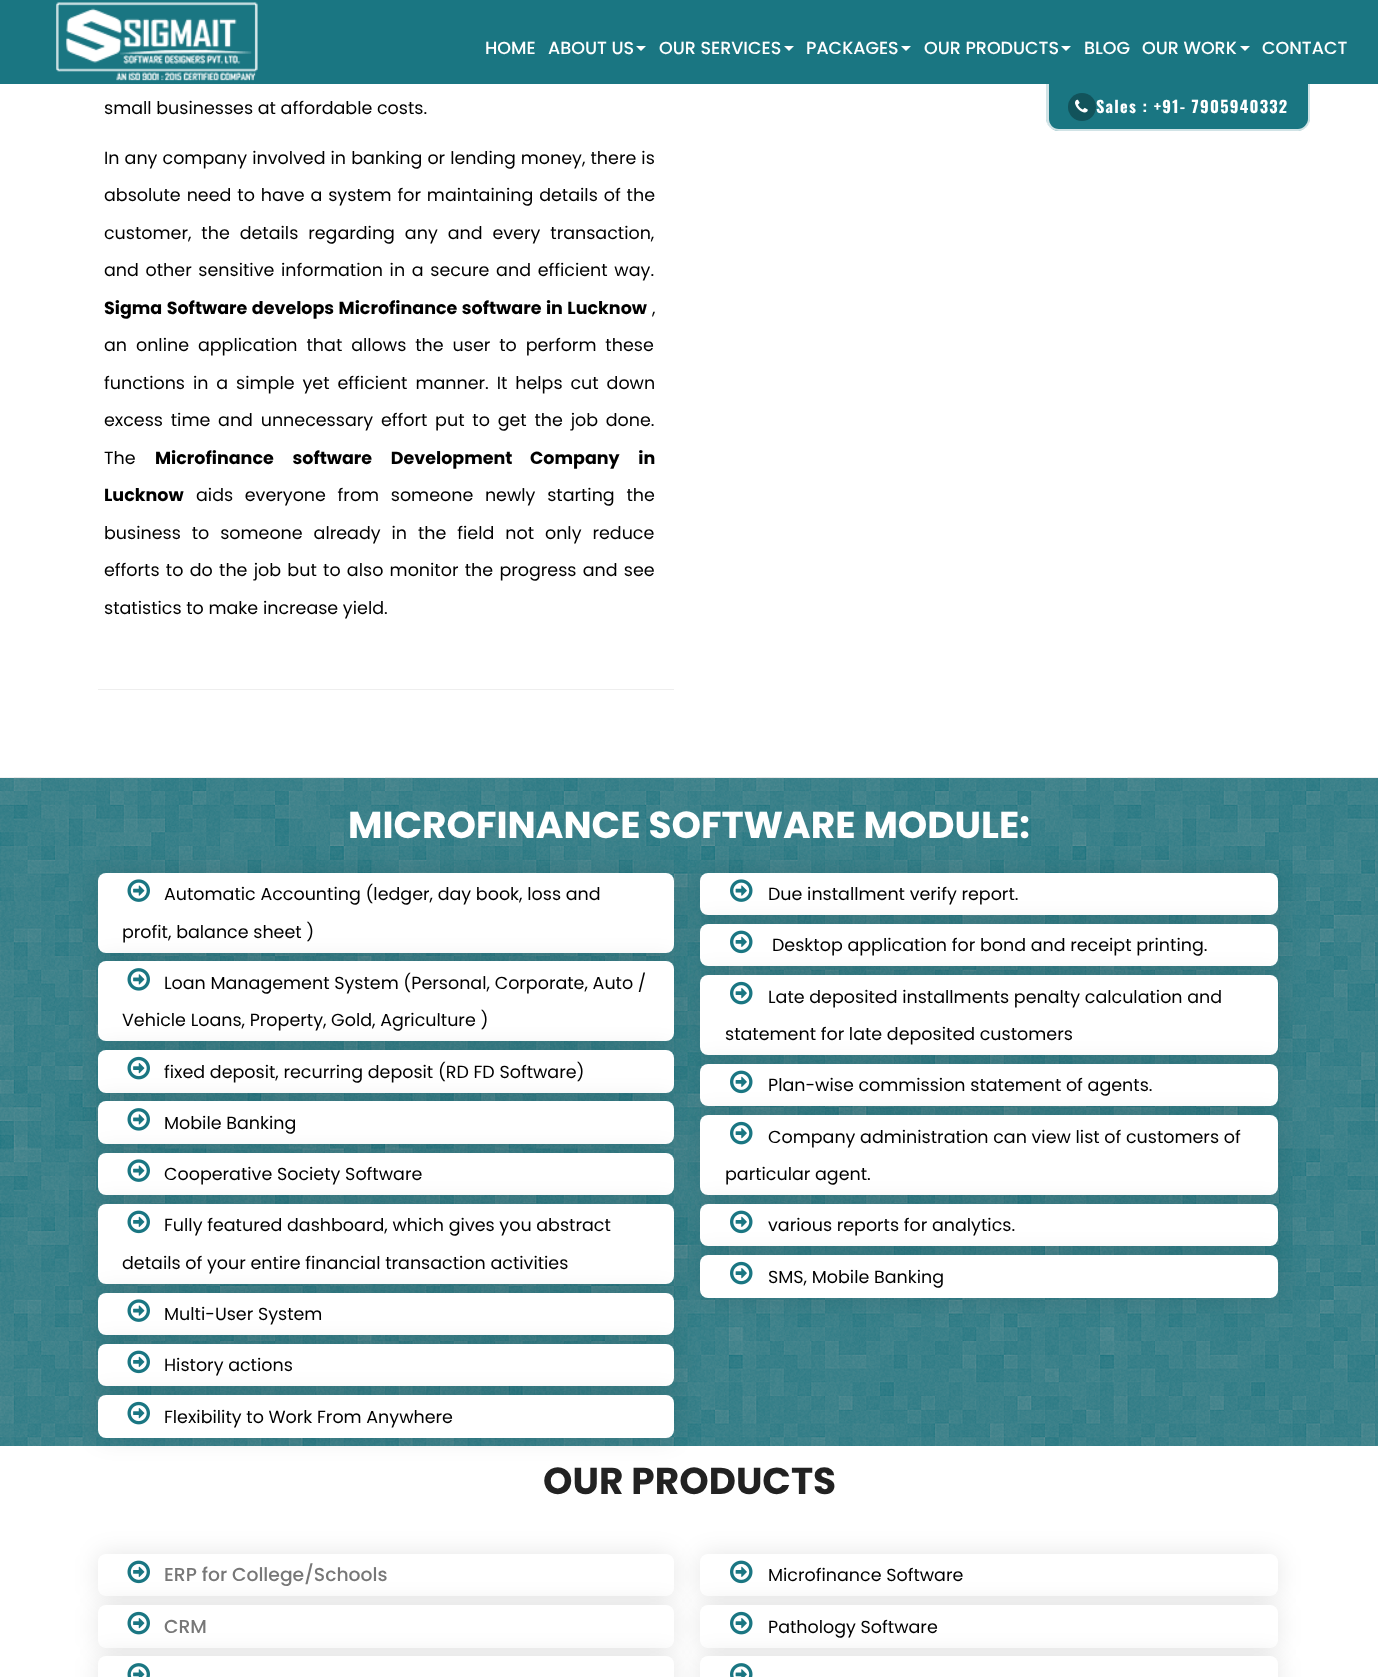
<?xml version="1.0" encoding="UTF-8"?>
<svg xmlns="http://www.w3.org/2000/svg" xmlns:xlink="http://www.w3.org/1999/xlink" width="1378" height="1677">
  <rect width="100%" height="100%" fill="#ffffff" />
  <path d="M 1046 81 h 264 v 37 c 0 7 -6 13 -13 13 h -238 c -7 0 -13 -6 -13 -13 z" fill="#1a7682" />
  <path d="M 1046 81 h 264 v 38 c 0 7 -6 12 -12 12 h -239 c -7 0 -13 -5 -13 -12 z m 3 0 h 259 v 38 c 0 5 -5 10 -10 10 h -239 c -6 0 -10 -5 -10 -10 z" fill="#ffffff" fill-opacity="0.8" fill-rule="evenodd" />
  <rect width="1378" height="84" fill="#1a7682" />
  <image x="56" y="2" width="202" height="79" xlink:href="image1.png" />
  <path d="M 636 46 h 10 l -5 5 z" fill="#ffffff" />
  <path d="M 784 46 h 10 l -5 5 z" fill="#ffffff" />
  <path d="M 901 46 h 10 l -5 5 z" fill="#ffffff" />
  <path d="M 1061 46 h 10 l -5 5 z" fill="#ffffff" />
  <path d="M 1240 46 h 10 l -5 5 z" fill="#ffffff" />
  <rect x="98" y="689" width="576" height="1" fill="#eeeeee" />
  <rect y="778" width="1378" height="668" fill="#1a7682" />
  <image x="0" y="777" width="1378" height="669" xlink:href="image2.png" />
  <rect x="98" y="873" width="576" height="80" rx="8" fill="#000000" fill-opacity="0.1" filter="blur(12.5px)" />
  <rect x="98" y="873" width="576" height="80" rx="8" fill="#ffffff" />
  <image x="127" y="879" width="23" height="23" xlink:href="image3.png" />
  <rect x="98" y="961" width="576" height="80" rx="8" fill="#000000" fill-opacity="0.1" filter="blur(12.5px)" />
  <rect x="98" y="961" width="576" height="80" rx="8" fill="#ffffff" />
  <image x="127" y="968" width="23" height="23" xlink:href="image4.png" />
  <rect x="98" y="1050" width="576" height="43" rx="8" fill="#000000" fill-opacity="0.1" filter="blur(12.5px)" />
  <rect x="98" y="1050" width="576" height="43" rx="8" fill="#ffffff" />
  <rect x="98" y="1101" width="576" height="43" rx="8" fill="#000000" fill-opacity="0.1" filter="blur(12.5px)" />
  <image x="127" y="1056" width="23" height="24" xlink:href="image5.png" />
  <rect x="98" y="1101" width="576" height="43" rx="8" fill="#ffffff" />
  <rect x="98" y="1153" width="576" height="42" rx="8" fill="#000000" fill-opacity="0.1" filter="blur(12.5px)" />
  <image x="127" y="1108" width="23" height="23" xlink:href="image6.png" />
  <rect x="98" y="1153" width="576" height="42" rx="8" fill="#ffffff" />
  <rect x="98" y="1204" width="576" height="80" rx="8" fill="#000000" fill-opacity="0.1" filter="blur(12.5px)" />
  <image x="127" y="1159" width="23" height="23" xlink:href="image7.png" />
  <rect x="98" y="1204" width="576" height="80" rx="8" fill="#ffffff" />
  <image x="127" y="1210" width="23" height="24" xlink:href="image8.png" />
  <rect x="98" y="1293" width="576" height="42" rx="8" fill="#000000" fill-opacity="0.1" filter="blur(12.5px)" />
  <rect x="98" y="1293" width="576" height="42" rx="8" fill="#ffffff" />
  <rect x="98" y="1344" width="576" height="42" rx="8" fill="#000000" fill-opacity="0.1" filter="blur(12.5px)" />
  <image x="127" y="1299" width="23" height="23" xlink:href="image7.png" />
  <rect x="98" y="1344" width="576" height="42" rx="8" fill="#ffffff" />
  <rect x="98" y="1395" width="576" height="43" rx="8" fill="#000000" fill-opacity="0.1" filter="blur(12.5px)" />
  <image x="127" y="1350" width="23" height="24" xlink:href="image9.png" />
  <rect x="98" y="1395" width="576" height="43" rx="8" fill="#ffffff" />
  <image x="127" y="1401" width="23" height="24" xlink:href="image10.png" />
  <rect x="700" y="873" width="578" height="42" rx="8" fill="#000000" fill-opacity="0.1" filter="blur(12.5px)" />
  <rect x="700" y="873" width="578" height="42" rx="8" fill="#ffffff" />
  <rect x="700" y="924" width="578" height="42" rx="8" fill="#000000" fill-opacity="0.1" filter="blur(12.5px)" />
  <image x="730" y="879" width="23" height="23" xlink:href="image11.png" />
  <rect x="700" y="924" width="578" height="42" rx="8" fill="#ffffff" />
  <rect x="700" y="975" width="578" height="80" rx="8" fill="#000000" fill-opacity="0.1" filter="blur(12.5px)" />
  <image x="730" y="930" width="23" height="24" xlink:href="image12.png" />
  <rect x="700" y="975" width="578" height="80" rx="8" fill="#ffffff" />
  <image x="730" y="981" width="23" height="24" xlink:href="image13.png" />
  <rect x="700" y="1064" width="578" height="42" rx="8" fill="#000000" fill-opacity="0.1" filter="blur(12.5px)" />
  <rect x="700" y="1064" width="578" height="42" rx="8" fill="#ffffff" />
  <rect x="700" y="1115" width="578" height="80" rx="8" fill="#000000" fill-opacity="0.1" filter="blur(12.5px)" />
  <image x="730" y="1070" width="23" height="24" xlink:href="image12.png" />
  <rect x="700" y="1115" width="578" height="80" rx="8" fill="#ffffff" />
  <image x="730" y="1121" width="23" height="24" xlink:href="image13.png" />
  <rect x="700" y="1204" width="578" height="42" rx="8" fill="#000000" fill-opacity="0.1" filter="blur(12.5px)" />
  <rect x="700" y="1204" width="578" height="42" rx="8" fill="#ffffff" />
  <rect x="700" y="1255" width="578" height="43" rx="8" fill="#000000" fill-opacity="0.1" filter="blur(12.5px)" />
  <image x="730" y="1210" width="23" height="24" xlink:href="image12.png" />
  <rect x="700" y="1255" width="578" height="43" rx="8" fill="#ffffff" />
  <image x="730" y="1261" width="23" height="24" xlink:href="image13.png" />
  <rect x="98" y="1554" width="576" height="42" rx="8" fill="#000000" fill-opacity="0.1" filter="blur(12.5px)" />
  <rect x="98" y="1554" width="576" height="42" rx="8" fill="#ffffff" />
  <rect x="98" y="1605" width="576" height="43" rx="8" fill="#000000" fill-opacity="0.1" filter="blur(12.5px)" />
  <image x="127" y="1560" width="23" height="24" xlink:href="image9.png" />
  <rect x="98" y="1605" width="576" height="43" rx="8" fill="#ffffff" />
  <rect x="98" y="1656" width="576" height="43" rx="8" fill="#000000" fill-opacity="0.1" filter="blur(12.5px)" />
  <rect x="98" y="1656" width="576" height="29" rx="8" fill="#ffffff" />
  <image x="127" y="1663" width="23" height="14" xlink:href="image14.png" />
  <image x="127" y="1611" width="23" height="24" xlink:href="image5.png" />
  <rect x="700" y="1554" width="578" height="42" rx="8" fill="#000000" fill-opacity="0.1" filter="blur(12.5px)" />
  <rect x="700" y="1554" width="578" height="42" rx="8" fill="#ffffff" />
  <rect x="700" y="1605" width="578" height="43" rx="8" fill="#000000" fill-opacity="0.1" filter="blur(12.5px)" />
  <image x="730" y="1560" width="23" height="24" xlink:href="image12.png" />
  <rect x="700" y="1605" width="578" height="43" rx="8" fill="#ffffff" />
  <rect x="700" y="1656" width="578" height="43" rx="8" fill="#000000" fill-opacity="0.1" filter="blur(12.5px)" />
  <rect x="700" y="1656" width="578" height="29" rx="8" fill="#ffffff" />
  <image x="730" y="1663" width="23" height="14" xlink:href="image15.png" />
  <image x="730" y="1611" width="23" height="24" xlink:href="image16.png" />
  <circle cx="1082" cy="107" r="14" fill="#12535b" />
  <image x="1075" y="99" width="13" height="14" xlink:href="image17.png" />
  <text x="485" y="54" style="font-family: Poppins; font-size: 17.5px; font-weight: 500; fill: #ffffff">HOME</text>
  <text x="548" y="54" style="font-family: Poppins; font-size: 17.5px; font-weight: 500; fill: #ffffff">ABOUT US</text>
  <text x="659" y="54" style="font-family: Poppins; font-size: 17.5px; font-weight: 500; fill: #ffffff">OUR SERVICES</text>
  <text x="806" y="54" style="font-family: Poppins; font-size: 17.5px; font-weight: 500; fill: #ffffff">PACKAGES</text>
  <text x="924" y="54" style="font-family: Poppins; font-size: 17.5px; font-weight: 500; fill: #ffffff">OUR PRODUCTS</text>
  <text x="1084" y="54" style="font-family: Poppins; font-size: 17.5px; font-weight: 500; fill: #ffffff">BLOG</text>
  <text x="1142" y="54" style="font-family: Poppins; font-size: 17.5px; font-weight: 500; fill: #ffffff">OUR WORK</text>
  <text x="1262" y="54" style="font-family: Poppins; font-size: 17.5px; font-weight: 500; fill: #ffffff">CONTACT</text>
  <text x="104" y="114" style="font-family: Poppins; font-size: 17.5px; fill: #000000">small businesses at affordable costs.</text>
  <text x="104" y="164" word-spacing="0.4" style="font-family: Poppins; font-size: 17.5px; fill: #000000">In any company involved in banking or lending money, there is</text>
  <text x="104" y="201" word-spacing="1.25" style="font-family: Poppins; font-size: 17.5px; fill: #000000">absolute need to have a system for maintaining details of the</text>
  <text x="104" y="239" word-spacing="5.25" style="font-family: Poppins; font-size: 17.5px; fill: #000000">customer, the details regarding any and every transaction,</text>
  <text x="104" y="276" word-spacing="2" style="font-family: Poppins; font-size: 17.5px; fill: #000000">and other sensitive information in a secure and efficient way.</text>
  <text x="104" y="314" word-spacing="0.75" style="font-family: Poppins; font-size: 17.5px; font-weight: bold; fill: #000000">Sigma Software develops Microfinance software in Lucknow</text>
  <text x="652" y="314" style="font-family: Poppins; font-size: 17.5px; fill: #000000">,</text>
  <text x="104" y="351" word-spacing="4.25" style="font-family: Poppins; font-size: 17.5px; fill: #000000">an online application that allows the user to perform these</text>
  <text x="104" y="389" word-spacing="3.25" style="font-family: Poppins; font-size: 17.5px; fill: #000000">functions in a simple yet efficient manner. It helps cut down</text>
  <text x="104" y="426" word-spacing="3.1" style="font-family: Poppins; font-size: 17.5px; fill: #000000">excess time and unnecessary effort put to get the job done.</text>
  <text x="104" y="464" style="font-family: Poppins; font-size: 17.5px; fill: #000000">The</text>
  <text x="155" y="464" word-spacing="15" style="font-family: Poppins; font-size: 17.5px; font-weight: bold; fill: #000000">Microfinance software Development</text>
  <text x="530" y="464" word-spacing="15" style="font-family: Poppins; font-size: 17.5px; font-weight: bold; fill: #000000">Company in</text>
  <text x="104" y="501" style="font-family: Poppins; font-size: 17.5px; font-weight: bold; fill: #000000">Lucknow</text>
  <text x="196" y="501" word-spacing="7" style="font-family: Poppins; font-size: 17.5px; fill: #000000">aids everyone from someone newly starting the</text>
  <text x="104" y="539" word-spacing="6.25" style="font-family: Poppins; font-size: 17.5px; fill: #000000">business to someone already in the field not only reduce</text>
  <text x="104" y="576" word-spacing="1.6" style="font-family: Poppins; font-size: 17.5px; fill: #000000">efforts to do the job but to also monitor the progress and see</text>
  <text x="104" y="614" style="font-family: Poppins; font-size: 17.5px; fill: #000000">statistics to make increase yield.</text>
  <text x="348" y="838" style="font-family: Poppins; font-size: 37.5px; font-weight: bold; fill: #ffffff">MICROFINANCE SOFTWARE MODULE:</text>
  <text x="164" y="900" style="font-family: Poppins; font-size: 17.5px; fill: #000000">Automatic Accounting (ledger, day book, loss and</text>
  <text x="122" y="938" style="font-family: Poppins; font-size: 17.5px; fill: #000000">profit, balance sheet )</text>
  <text x="164" y="989" style="font-family: Poppins; font-size: 17.5px; fill: #000000">Loan Management System (Personal, Corporate, Auto /</text>
  <text x="122" y="1026" style="font-family: Poppins; font-size: 17.5px; fill: #000000">Vehicle Loans, Property, Gold, Agriculture )</text>
  <text x="164" y="1078" style="font-family: Poppins; font-size: 17.5px; fill: #000000">fixed deposit, recurring deposit (RD FD Software)</text>
  <text x="164" y="1129" style="font-family: Poppins; font-size: 17.5px; fill: #000000">Mobile Banking</text>
  <text x="164" y="1180" style="font-family: Poppins; font-size: 17.5px; fill: #000000">Cooperative Society Software</text>
  <text x="164" y="1231" style="font-family: Poppins; font-size: 17.5px; fill: #000000">Fully featured dashboard, which gives you abstract</text>
  <text x="122" y="1269" style="font-family: Poppins; font-size: 17.5px; fill: #000000">details of your entire financial transaction activities</text>
  <text x="164" y="1320" style="font-family: Poppins; font-size: 17.5px; fill: #000000">Multi-User System</text>
  <text x="164" y="1371" style="font-family: Poppins; font-size: 17.5px; fill: #000000">History actions</text>
  <text x="164" y="1423" style="font-family: Poppins; font-size: 17.5px; fill: #000000">Flexibility to Work From Anywhere</text>
  <text x="768" y="900" style="font-family: Poppins; font-size: 17.5px; fill: #000000">Due installment verify report.</text>
  <text x="772" y="951" style="font-family: Poppins; font-size: 17.5px; fill: #000000">Desktop application for bond and receipt printing.</text>
  <text x="768" y="1003" style="font-family: Poppins; font-size: 17.5px; fill: #000000">Late deposited installments penalty calculation and</text>
  <text x="725" y="1040" style="font-family: Poppins; font-size: 17.5px; fill: #000000">statement for late deposited customers</text>
  <text x="768" y="1091" style="font-family: Poppins; font-size: 17.5px; fill: #000000">Plan-wise commission statement of agents.</text>
  <text x="768" y="1143" style="font-family: Poppins; font-size: 17.5px; fill: #000000">Company administration can view list of customers of</text>
  <text x="725" y="1180" style="font-family: Poppins; font-size: 17.5px; fill: #000000">particular agent.</text>
  <text x="768" y="1231" style="font-family: Poppins; font-size: 17.5px; fill: #000000">various reports for analytics.</text>
  <text x="768" y="1283" style="font-family: Poppins; font-size: 17.5px; fill: #000000">SMS, Mobile Banking</text>
  <text x="543" y="1494" style="font-family: Poppins; font-size: 37.5px; font-weight: bold; fill: #222222">OUR PRODUCTS</text>
  <text x="164" y="1581" style="font-family: Poppins; font-size: 18.75px; font-weight: 500; fill: #777777">ERP for College/Schools</text>
  <text x="164" y="1633" style="font-family: Poppins; font-size: 18.75px; font-weight: 500; fill: #777777">CRM</text>
  <text x="768" y="1581" style="font-family: Poppins; font-size: 17.5px; fill: #000000">Microfinance Software</text>
  <text x="768" y="1633" style="font-family: Poppins; font-size: 17.5px; fill: #000000">Pathology Software</text>
  <text x="1096" y="113" style="font-family: Oswald; font-size: 16.25px; font-weight: bold; letter-spacing: 1.25px; fill: #ffffff">Sales : +91- 7905940332</text>
</svg>
